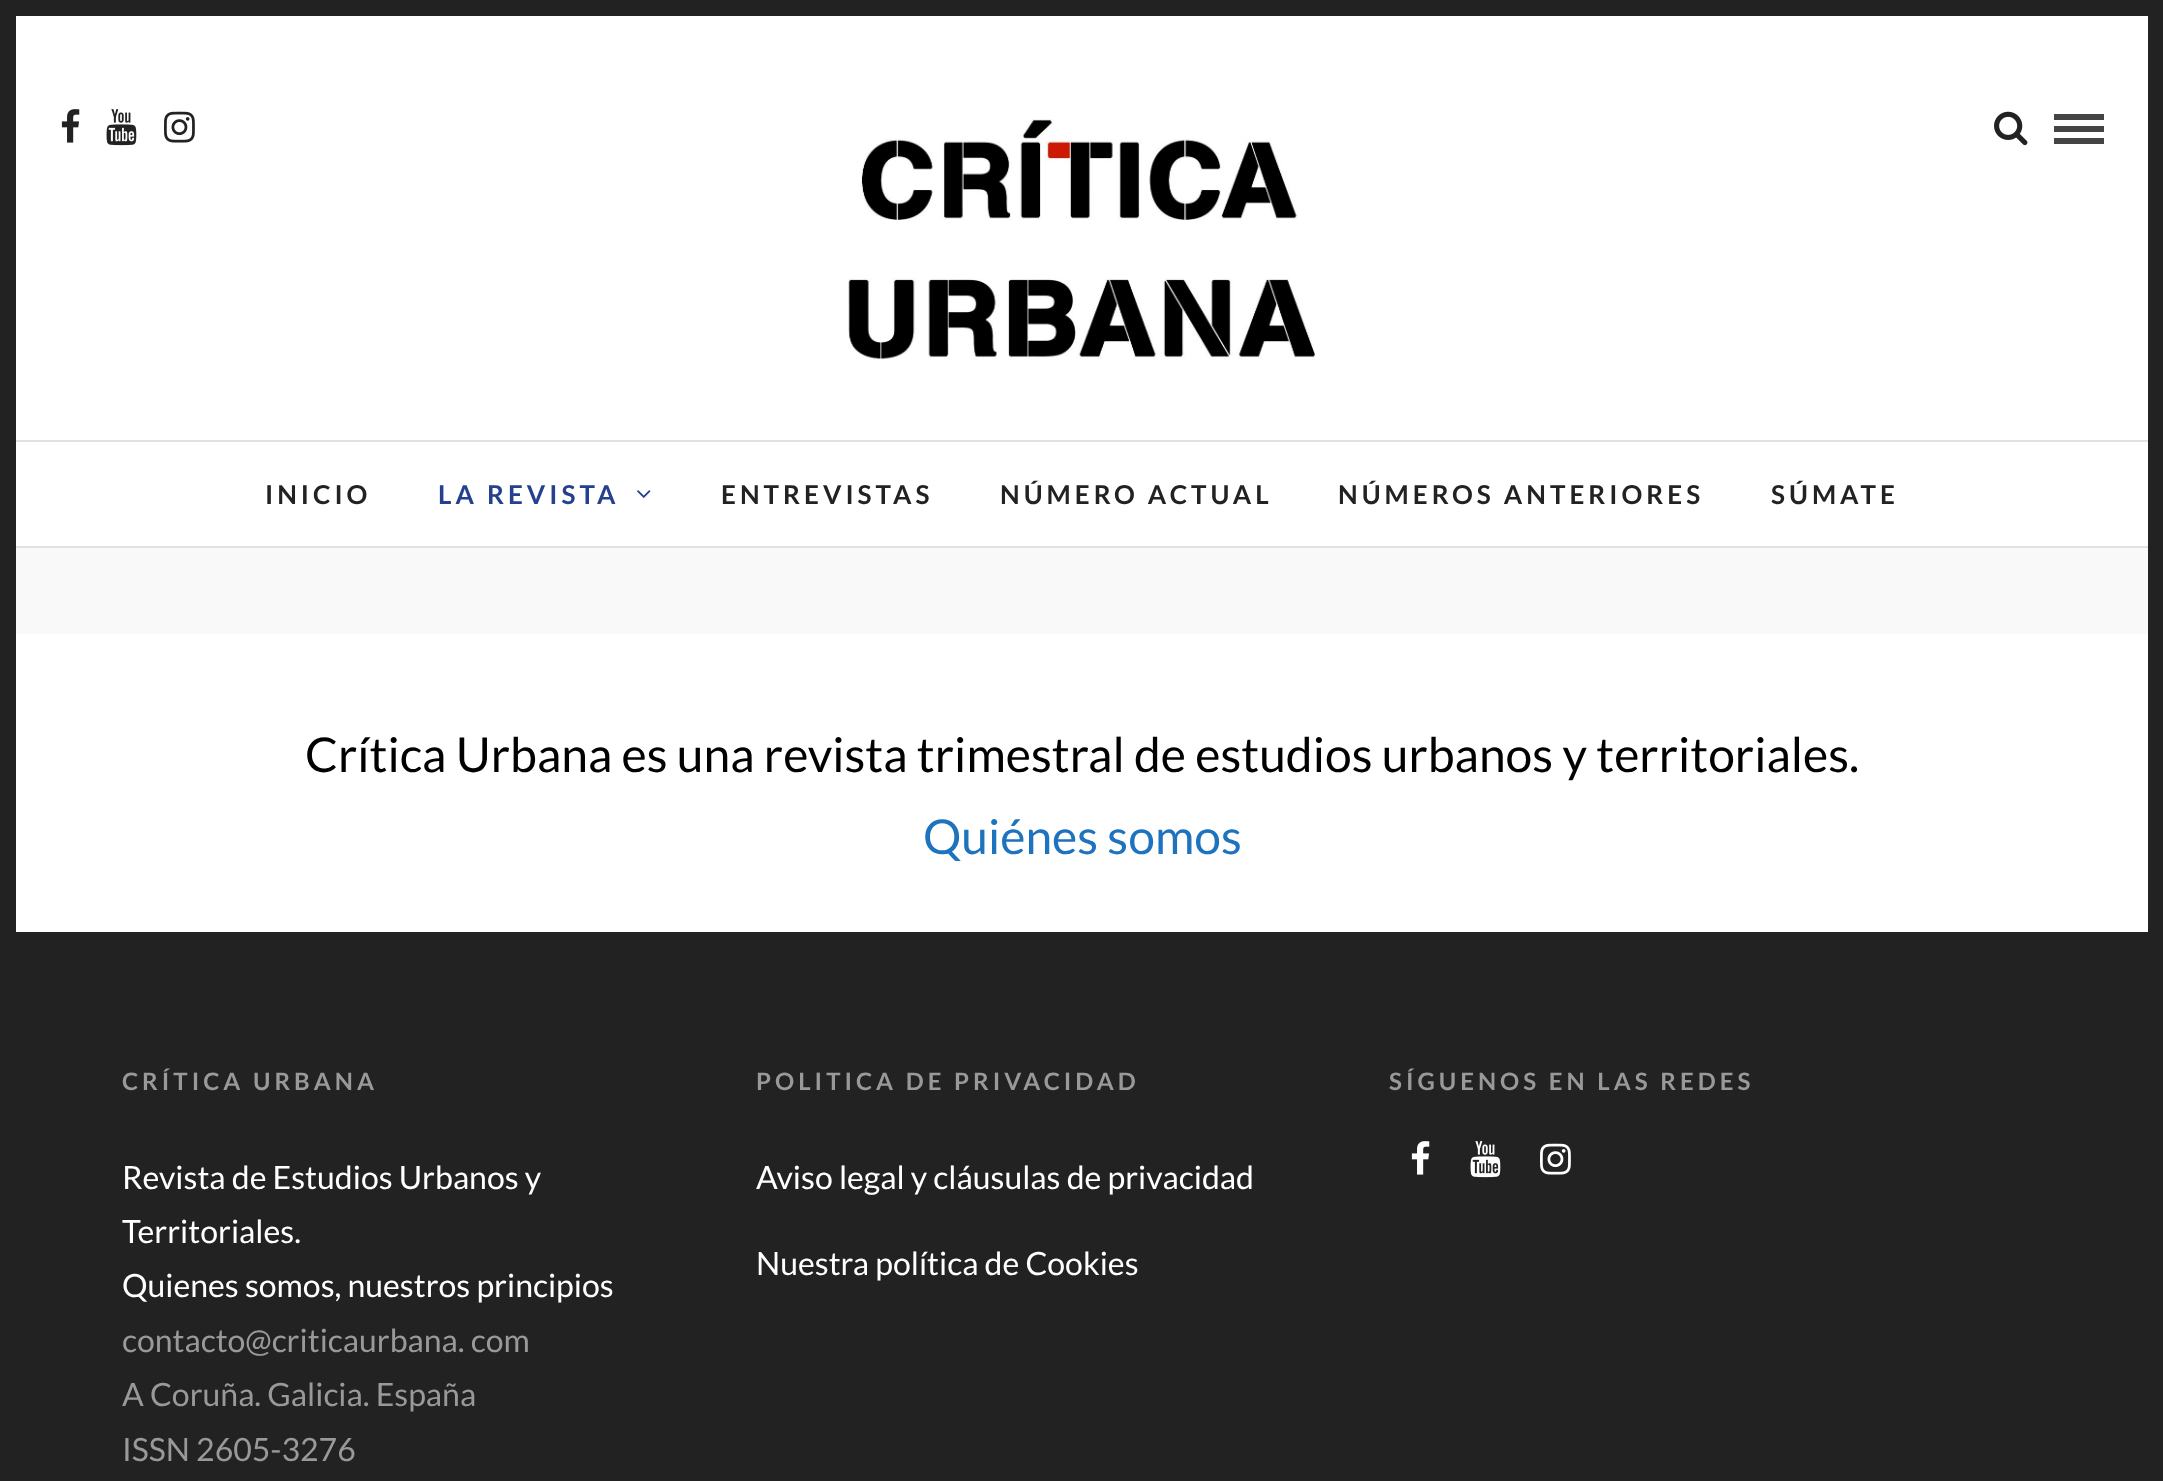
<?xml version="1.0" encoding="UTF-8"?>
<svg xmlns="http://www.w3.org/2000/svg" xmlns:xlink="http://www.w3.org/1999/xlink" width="2163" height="1481">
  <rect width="100%" height="100%" fill="#ffffff" />
  <rect width="16" height="1481" fill="#222222" />
  <rect x="16" width="2132" height="16" fill="#222222" />
  <rect x="2148" width="15" height="1481" fill="#222222" />
  <rect x="16" y="546" width="2132" height="2" fill="#e1e1e1" />
  <rect x="16" y="440" width="2132" height="2" fill="#e1e1e1" />
  <image x="61" y="109" width="19" height="34" xlink:href="image1.png" />
  <image x="106" y="109" width="31" height="37" xlink:href="image2.png" />
  <image x="164" y="111" width="31" height="32" xlink:href="image3.png" />
  <image x="848" y="119" width="468" height="241" xlink:href="image4.png" />
  <image x="1994" y="111" width="34" height="35" xlink:href="image5.png" />
  <rect x="2054" y="114" width="50" height="6" fill="#444444" />
  <rect x="2054" y="126" width="50" height="6" fill="#444444" />
  <rect x="2054" y="138" width="50" height="6" fill="#444444" />
  <image x="637" y="490" width="14" height="8" xlink:href="image6.png" />
  <rect x="16" y="548" width="2132" height="86" fill="#f9f9f9" />
  <rect x="16" y="932" width="2132" height="549" fill="#222222" />
  <image x="1411" y="1141" width="19" height="34" xlink:href="image7.png" />
  <image x="1470" y="1141" width="31" height="37" xlink:href="image8.png" />
  <image x="1540" y="1143" width="31" height="32" xlink:href="image9.png" />
  <text x="265" y="504" style="font-family: Lato; font-size: 26px; font-weight: bold; letter-spacing: 4px; fill: #222222">INICIO</text>
  <text x="438" y="504" style="font-family: Lato; font-size: 26px; font-weight: bold; letter-spacing: 4px; fill: #25408f">LA REVISTA</text>
  <text x="721" y="504" style="font-family: Lato; font-size: 26px; font-weight: bold; letter-spacing: 4px; fill: #222222">ENTREVISTAS</text>
  <text x="1000" y="504" style="font-family: Lato; font-size: 26px; font-weight: bold; letter-spacing: 4px; fill: #222222">NÚMERO ACTUAL</text>
  <text x="1338" y="504" style="font-family: Lato; font-size: 26px; font-weight: bold; letter-spacing: 4px; fill: #222222">NÚMEROS ANTERIORES</text>
  <text x="1771" y="504" style="font-family: Lato; font-size: 26px; font-weight: bold; letter-spacing: 4px; fill: #222222">SÚMATE</text>
  <text x="305" y="772" style="font-family: Lato; font-size: 48px; fill: #000000">Crítica Urbana es una revista trimestral de estudios urbanos y territoriales.</text>
  <text x="923" y="854" style="font-family: Lato; font-size: 48px; fill: #1e73be">Quiénes somos</text>
  <text x="122" y="1090" style="font-family: Lato; font-size: 24px; font-weight: bold; letter-spacing: 4px; fill: #999999">CRÍTICA URBANA</text>
  <text x="122" y="1189" style="font-family: Lato; font-size: 32px; fill: #ffffff">Revista de Estudios Urbanos y</text>
  <text x="122" y="1243" style="font-family: Lato; font-size: 32px; fill: #ffffff">Territoriales.</text>
  <text x="122" y="1297" style="font-family: Lato; font-size: 32px; fill: #ffffff">Quienes somos, nuestros principios</text>
  <text x="122" y="1352" style="font-family: Lato; font-size: 32px; fill: #999999">contacto@criticaurbana. com</text>
  <text x="122" y="1406" style="font-family: Lato; font-size: 32px; fill: #999999">A Coruña. Galicia. España</text>
  <text x="122" y="1461" style="font-family: Lato; font-size: 32px; fill: #999999">ISSN 2605-3276</text>
  <text x="756" y="1090" style="font-family: Lato; font-size: 24px; font-weight: bold; letter-spacing: 4px; fill: #999999">POLITICA DE PRIVACIDAD</text>
  <text x="756" y="1189" style="font-family: Lato; font-size: 32px; fill: #ffffff">Aviso legal y cláusulas de privacidad</text>
  <text x="756" y="1275" style="font-family: Lato; font-size: 32px; fill: #ffffff">Nuestra política de Cookies</text>
  <text x="1389" y="1090" style="font-family: Lato; font-size: 24px; font-weight: bold; letter-spacing: 4px; fill: #999999">SÍGUENOS EN LAS REDES</text>
</svg>
